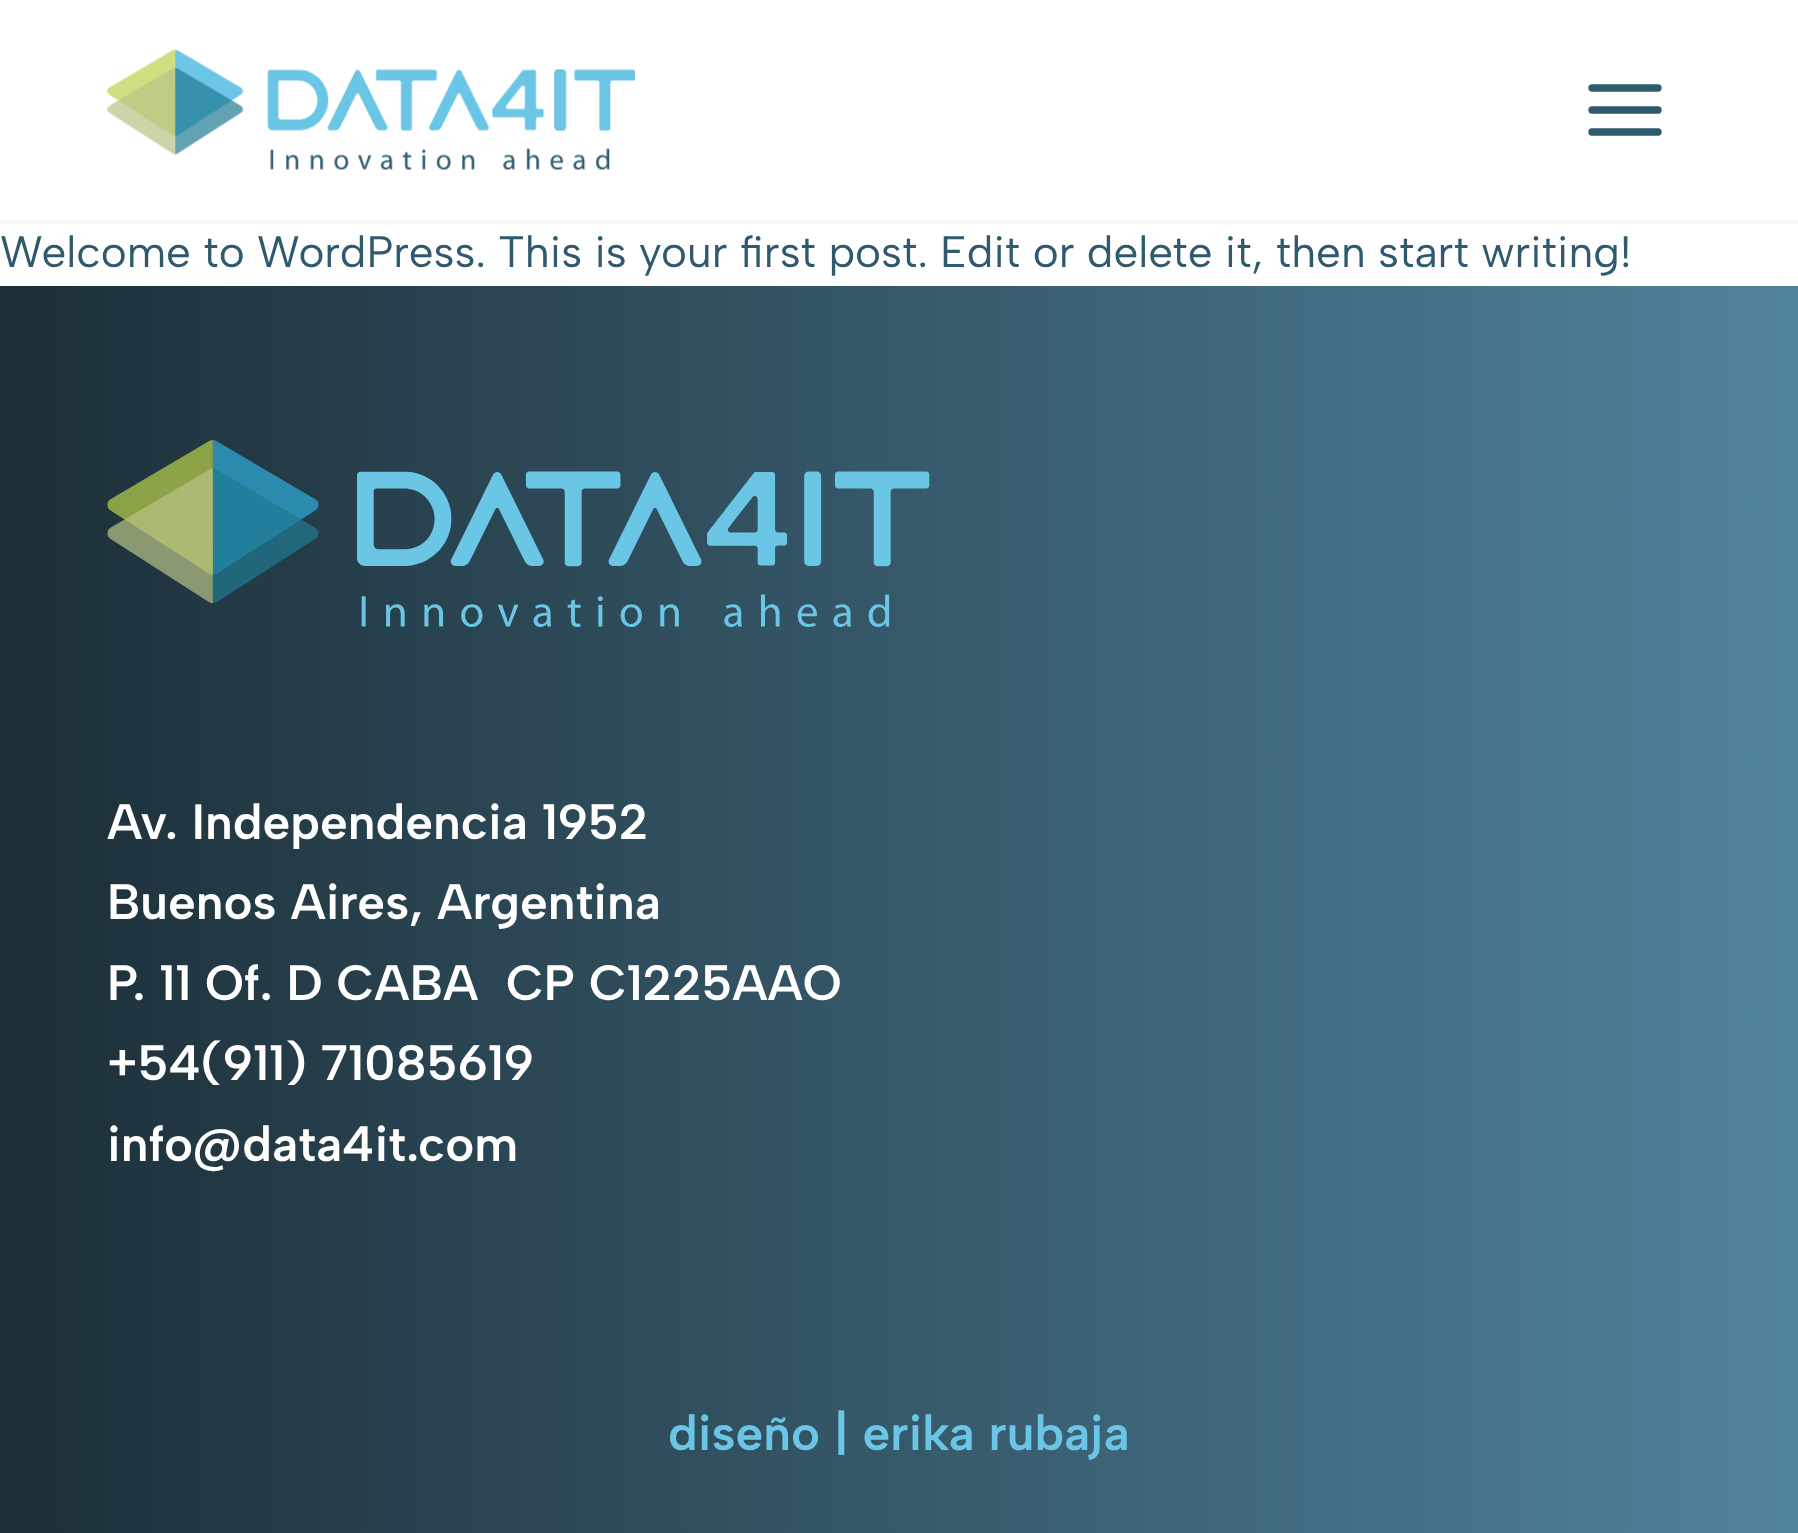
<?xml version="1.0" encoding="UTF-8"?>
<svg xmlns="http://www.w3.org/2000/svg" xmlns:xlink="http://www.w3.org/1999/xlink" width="1798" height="1533">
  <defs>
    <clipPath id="clip1"><rect x="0" y="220" width="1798" height="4" /></clipPath>
    <linearGradient id="g1" gradientUnits="userSpaceOnUse" x1="0" y1="945" x2="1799" y2="945"><stop offset="0" stop-color="#1c2e37" /><stop offset="1" stop-color="#50839d" /></linearGradient>
  </defs>
  <rect width="100%" height="100%" fill="#ffffff" />
  <g clip-path="url(#clip1)">
    <rect y="3" width="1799" height="220" fill="#000000" fill-opacity="0.05" filter="blur(3px)" />
  </g>
  <image x="107" y="50" width="528" height="120" xlink:href="image1.png" />
  <path d="M 1592 110 h 66" fill="none" stroke="#2f596d" stroke-width="7.3" stroke-linecap="round" stroke-linejoin="round" />
  <path d="M 1592 88 h 66" fill="none" stroke="#2f596d" stroke-width="7.3" stroke-linecap="round" stroke-linejoin="round" />
  <path d="M 1592 132 h 66" fill="none" stroke="#2f596d" stroke-width="7.3" stroke-linecap="round" stroke-linejoin="round" />
  <rect y="286" width="1798" height="1247" fill="url(#g1)" />
  <image x="107" y="440" width="823" height="187" xlink:href="image2.png" />
  <text x="0" y="267" style="font-family: Albert Sans; font-size: 44px; fill: #2f596d">Welcome to WordPress. This is your first post. Edit or delete it, then start writing!</text>
  <text x="107" y="839" style="font-family: Albert Sans; font-size: 49.5px; font-weight: 600; fill: #ffffff">Av. Independencia 1952</text>
  <text x="107" y="919" style="font-family: Albert Sans; font-size: 49.5px; font-weight: 600; fill: #ffffff">Buenos Aires, Argentina</text>
  <text x="107" y="1000" style="font-family: Albert Sans; font-size: 49.5px; font-weight: 600; fill: #ffffff" xml:space="preserve">P. 11 Of. D CABA  CP C1225AAO</text>
  <text x="107" y="1080" style="font-family: Albert Sans; font-size: 49.5px; font-weight: 600; fill: #ffffff">+54(911) 71085619</text>
  <text x="107" y="1161" style="font-family: Albert Sans; font-size: 49.5px; font-weight: 600; fill: #ffffff">info@data4it.com</text>
  <text x="668" y="1450" style="font-family: Albert Sans; font-size: 49.5px; font-weight: 600; fill: #6bc6e6">diseño | erika rubaja</text>
</svg>
